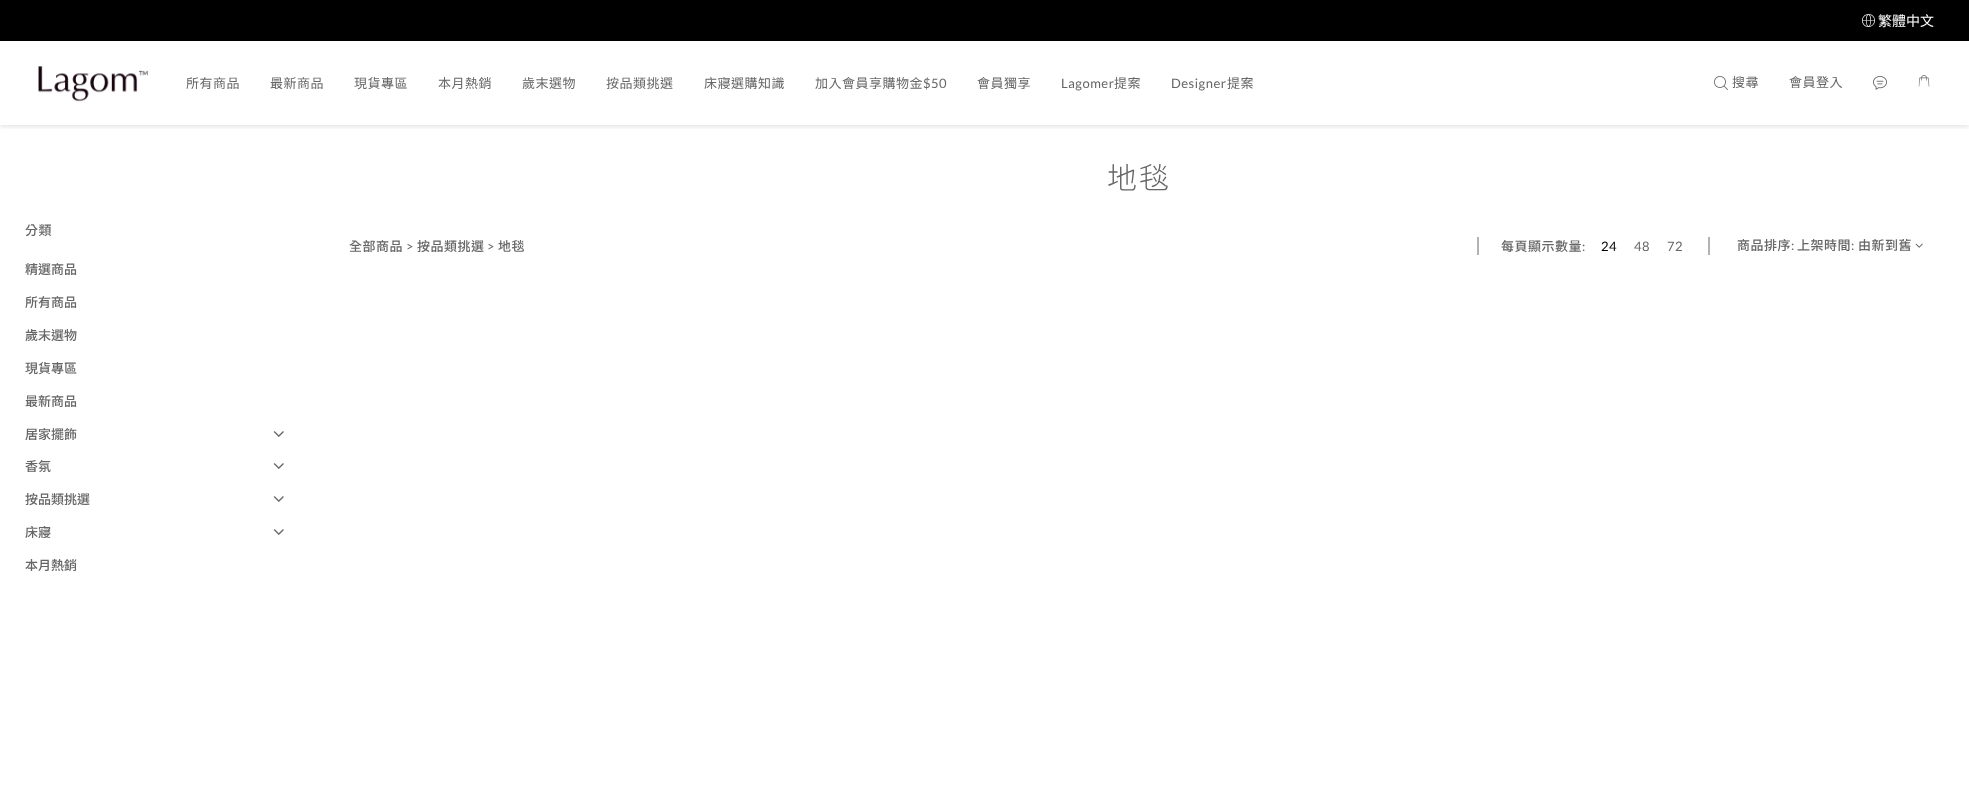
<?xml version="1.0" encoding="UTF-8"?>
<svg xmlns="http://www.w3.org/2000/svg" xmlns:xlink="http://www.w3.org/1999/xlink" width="1969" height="793">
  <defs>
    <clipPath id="clip1"><rect x="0" y="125" width="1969" height="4" /></clipPath>
  </defs>
  <rect width="100%" height="100%" fill="#ffffff" />
  <rect width="1969" height="41" fill="#000000" />
  <image x="1862" y="14" width="13" height="13" xlink:href="image1.png" />
  <g clip-path="url(#clip1)">
    <rect y="43" width="1969" height="84" fill="#000000" fill-opacity="0.1" filter="blur(2px)" />
  </g>
  <image x="38" y="66" width="110" height="36" xlink:href="image2.png" />
  <image x="1714" y="76" width="14" height="14" xlink:href="image3.png" />
  <image x="1873" y="76" width="14" height="14" xlink:href="image4.png" />
  <image x="1918" y="75" width="12" height="12" xlink:href="image5.png" />
  <rect x="1708" y="237" width="2" height="18" fill="#b3b3b3" />
  <rect x="1477" y="237" width="2" height="18" fill="#b3b3b3" />
  <image x="1915" y="243" width="8" height="5" xlink:href="image6.png" />
  <image x="273" y="431" width="11" height="6" xlink:href="image7.png" />
  <image x="273" y="463" width="11" height="6" xlink:href="image7.png" />
  <image x="273" y="496" width="11" height="6" xlink:href="image7.png" />
  <image x="273" y="529" width="11" height="6" xlink:href="image7.png" />
  <text x="1878" y="26" style="font-family: Noto Sans TC; font-size: 14px; fill: #ffffff">繁體中文</text>
  <text x="186" y="88" style="font-family: Noto Sans TC; font-size: 13px; letter-spacing: 0.5px; fill: #666666">所有商品</text>
  <text x="270" y="88" style="font-family: Noto Sans TC; font-size: 13px; letter-spacing: 0.5px; fill: #666666">最新商品</text>
  <text x="354" y="88" style="font-family: Noto Sans TC; font-size: 13px; letter-spacing: 0.5px; fill: #666666">現貨專區</text>
  <text x="438" y="88" style="font-family: Noto Sans TC; font-size: 13px; letter-spacing: 0.5px; fill: #666666">本月熱銷</text>
  <text x="522" y="88" style="font-family: Noto Sans TC; font-size: 13px; letter-spacing: 0.5px; fill: #666666">歲末選物</text>
  <text x="606" y="88" style="font-family: Noto Sans TC; font-size: 13px; letter-spacing: 0.5px; fill: #666666">按品類挑選</text>
  <text x="704" y="88" style="font-family: Noto Sans TC; font-size: 13px; letter-spacing: 0.5px; fill: #666666">床寢選購知識</text>
  <text x="815" y="88" style="font-family: Noto Sans TC; font-size: 13px; letter-spacing: 0.5px; fill: #666666">加入會員享購物金</text>
  <text x="923" y="88" style="font-family: Lato; font-size: 13px; letter-spacing: 0.5px; fill: #666666">$50</text>
  <text x="977" y="88" style="font-family: Noto Sans TC; font-size: 13px; letter-spacing: 0.5px; fill: #666666">會員獨享</text>
  <text x="1061" y="88" style="font-family: Lato; font-size: 13px; letter-spacing: 0.5px; fill: #666666">Lagomer</text>
  <text x="1114" y="88" style="font-family: Noto Sans TC; font-size: 13px; letter-spacing: 0.5px; fill: #666666">提案</text>
  <text x="1171" y="88" style="font-family: Lato; font-size: 13px; letter-spacing: 0.5px; fill: #666666">Designer</text>
  <text x="1227" y="88" style="font-family: Noto Sans TC; font-size: 13px; letter-spacing: 0.5px; fill: #666666">提案</text>
  <text x="1732" y="87" style="font-family: Noto Sans TC; font-size: 13px; letter-spacing: 0.5px; fill: #666666">搜尋</text>
  <text x="1789" y="87" style="font-family: Noto Sans TC; font-size: 13px; letter-spacing: 0.5px; fill: #666666">會員登入</text>
  <text x="1107" y="189" style="font-family: Noto Sans TC; font-size: 30px; font-weight: 300; letter-spacing: 2px; fill: #666666">地毯</text>
  <text x="349" y="251" style="font-family: Noto Sans TC; font-size: 13px; font-weight: 500; letter-spacing: 0.5px; fill: #666666">全部商品</text>
  <text x="406" y="251" style="font-family: Lato; font-size: 13px; letter-spacing: 0.5px; fill: #666666">&gt;</text>
  <text x="417" y="251" style="font-family: Noto Sans TC; font-size: 13px; font-weight: 500; letter-spacing: 0.5px; fill: #666666">按品類挑選</text>
  <text x="487" y="251" style="font-family: Lato; font-size: 13px; letter-spacing: 0.5px; fill: #666666">&gt;</text>
  <text x="498" y="251" style="font-family: Noto Sans TC; font-size: 13px; font-weight: 500; letter-spacing: 0.5px; fill: #666666">地毯</text>
  <text x="1501" y="251" style="font-family: Noto Sans TC; font-size: 13px; font-weight: 500; letter-spacing: 0.5px; fill: #666666">每頁顯示數量</text>
  <text x="1582" y="251" style="font-family: Lato; font-size: 13px; letter-spacing: 0.5px; fill: #666666">:</text>
  <text x="1601" y="251" style="font-family: Lato; font-size: 13px; letter-spacing: 0.5px; fill: #000000">24</text>
  <text x="1634" y="251" style="font-family: Lato; font-size: 13px; letter-spacing: 0.5px; fill: #666666">48</text>
  <text x="1667" y="251" style="font-family: Lato; font-size: 13px; letter-spacing: 0.5px; fill: #666666">72</text>
  <text x="1737" y="250" style="font-family: Noto Sans TC; font-size: 13px; font-weight: 500; letter-spacing: 0.5px; fill: #666666">商品排序</text>
  <text x="1791" y="250" style="font-family: Lato; font-size: 13px; letter-spacing: 0.5px; fill: #666666">:</text>
  <text x="1797" y="250" style="font-family: Noto Sans TC; font-size: 13px; font-weight: 500; letter-spacing: 0.5px; fill: #666666">上架時間</text>
  <text x="1851" y="250" style="font-family: Lato; font-size: 13px; letter-spacing: 0.5px; fill: #666666">:</text>
  <text x="1858" y="250" style="font-family: Noto Sans TC; font-size: 13px; font-weight: 500; letter-spacing: 0.5px; fill: #666666">由新到舊</text>
  <text x="25" y="235" style="font-family: Noto Sans TC; font-size: 13px; font-weight: 500; letter-spacing: 0.5px; fill: #666666">分類</text>
  <text x="25" y="274" style="font-family: Noto Sans TC; font-size: 13px; font-weight: 500; fill: #666666">精選商品</text>
  <text x="25" y="307" style="font-family: Noto Sans TC; font-size: 13px; font-weight: 500; fill: #666666">所有商品</text>
  <text x="25" y="340" style="font-family: Noto Sans TC; font-size: 13px; font-weight: 500; fill: #666666">歲末選物</text>
  <text x="25" y="373" style="font-family: Noto Sans TC; font-size: 13px; font-weight: 500; fill: #666666">現貨專區</text>
  <text x="25" y="406" style="font-family: Noto Sans TC; font-size: 13px; font-weight: 500; fill: #666666">最新商品</text>
  <text x="25" y="439" style="font-family: Noto Sans TC; font-size: 13px; font-weight: 500; fill: #666666">居家擺飾</text>
  <text x="25" y="471" style="font-family: Noto Sans TC; font-size: 13px; font-weight: 500; fill: #666666">香氛</text>
  <text x="25" y="504" style="font-family: Noto Sans TC; font-size: 13px; font-weight: 500; fill: #666666">按品類挑選</text>
  <text x="25" y="537" style="font-family: Noto Sans TC; font-size: 13px; font-weight: 500; fill: #666666">床寢</text>
  <text x="25" y="570" style="font-family: Noto Sans TC; font-size: 13px; font-weight: 500; fill: #666666">本月熱銷</text>
</svg>
